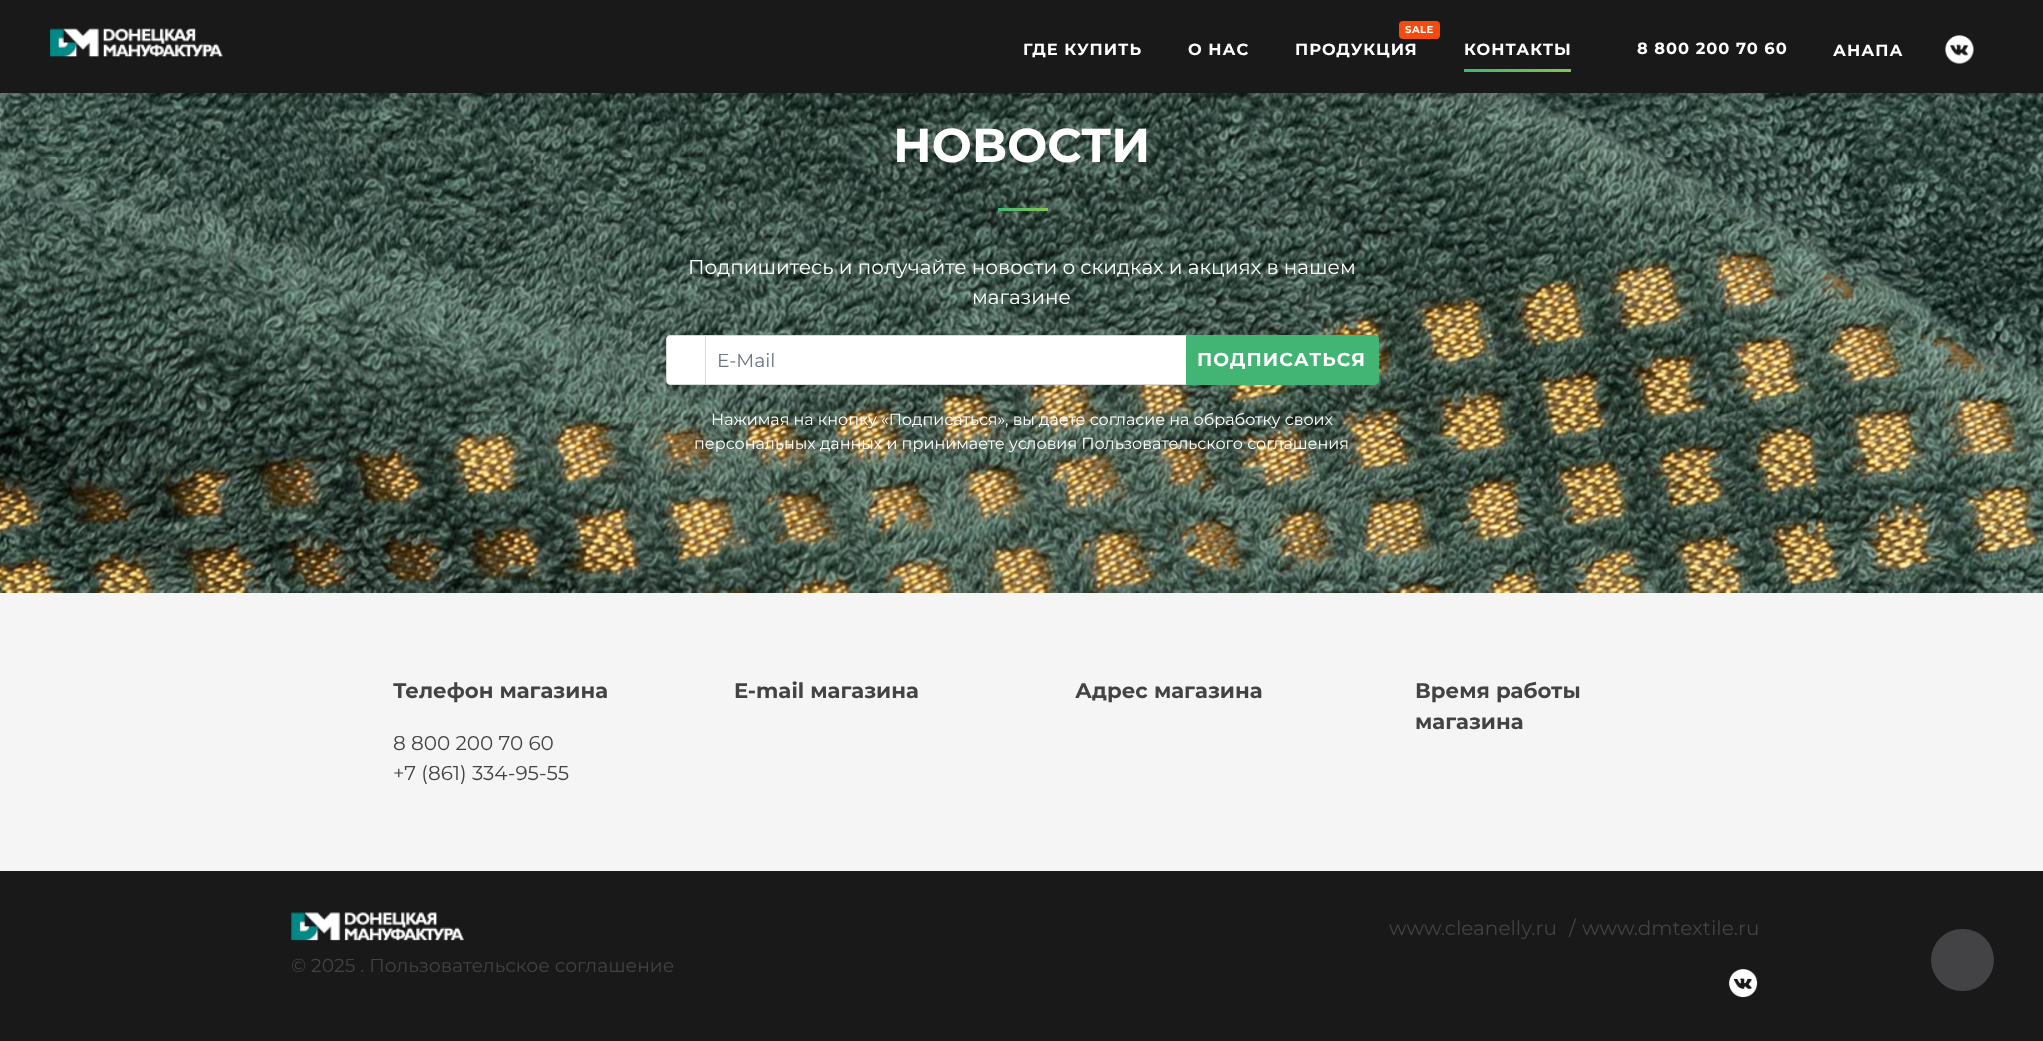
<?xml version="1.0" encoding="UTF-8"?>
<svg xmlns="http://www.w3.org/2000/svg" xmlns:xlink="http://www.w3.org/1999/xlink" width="2043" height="1041">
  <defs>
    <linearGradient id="g1" gradientUnits="userSpaceOnUse" x1="1464" y1="70" x2="1571" y2="70"><stop offset="0" stop-color="#42b574" /><stop offset="1" stop-color="#84c450" /></linearGradient>
    <linearGradient id="g2" gradientUnits="userSpaceOnUse" x1="998" y1="209" x2="1048" y2="209"><stop offset="0" stop-color="#42b574" /><stop offset="1" stop-color="#84c450" /></linearGradient>
  </defs>
  <rect width="100%" height="100%" fill="#f5f5f5" />
  <image x="0" y="93" width="2043" height="500" xlink:href="image3.png" />
  <rect y="4" width="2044" height="92" fill="#000000" fill-opacity="0.15" filter="blur(7px)" />
  <rect width="2043" height="93" fill="#191919" />
  <image x="50" y="28" width="173" height="29" xlink:href="image1.png" />
  <rect x="1399" y="21" width="41" height="18" rx="4" fill="#f54b0f" />
  <rect x="1464" y="69" width="107" height="3" fill="url(#g1)" />
  <image x="1945" y="35" width="29" height="29" xlink:href="image2.png" />
  <rect x="998" y="208" width="50" height="3" fill="url(#g2)" />
  <path d="M 670 335.5 h 35.5 v 49 h -35.5 c -2 0 -3.5 -1.5 -3.5 -3.5 v -42 c 0 -2 1.5 -3.5 3.5 -3.5 z" fill="#ffffff" stroke="#d9d9d9" />
  <rect x="706" y="336" width="480" height="48" fill="#ffffff" />
  <rect x="705.5" y="335.5" width="482" height="49" fill="none" stroke="#d9d9d9" />
  <path d="M 1186.5 335.5 h 188.5 c 2 0 3.5 1.5 3.5 3.5 v 42 c 0 2 -1.5 3.5 -3.5 3.5 h -188.5 z" fill="#42b574" stroke="#42b574" />
  <rect y="871" width="2043" height="170" fill="#191919" />
  <image x="1729" y="969" width="29" height="29" xlink:href="image4.png" />
  <image x="291" y="912" width="173" height="29" xlink:href="image5.png" />
  <rect x="1931" y="929" width="63" height="62" rx="31" fill="#434345" />
  <text x="1023" y="55" style="font-family: Montserrat; font-size: 16.25px; font-weight: bold; letter-spacing: 1px; fill: #ffffff">ГДЕ КУПИТЬ</text>
  <text x="1188" y="55" style="font-family: Montserrat; font-size: 16.25px; font-weight: bold; letter-spacing: 1px; fill: #ffffff">О НАС</text>
  <text x="1405" y="33" style="font-family: Montserrat; font-size: 10px; font-weight: bold; letter-spacing: 0.5px; fill: #ffffff">SALE</text>
  <text x="1295" y="55" style="font-family: Montserrat; font-size: 16.25px; font-weight: bold; letter-spacing: 1px; fill: #ffffff">ПРОДУКЦИЯ</text>
  <text x="1464" y="55" style="font-family: Montserrat; font-size: 16.25px; font-weight: bold; letter-spacing: 1px; fill: #ffffff">КОНТАКТЫ</text>
  <text x="1637" y="54" style="font-family: Montserrat; font-size: 16.25px; font-weight: bold; letter-spacing: 1px; fill: #ffffff">8 800 200 70 60</text>
  <text x="1833" y="56" style="font-family: Montserrat; font-size: 16.25px; font-weight: bold; letter-spacing: 1px; fill: #ffffff">АНАПА</text>
  <text x="893" y="162" style="font-family: Montserrat; font-size: 47.5px; font-weight: bold; fill: #ffffff">НОВОСТИ</text>
  <text x="688" y="274" style="font-family: Montserrat; font-size: 20px; fill: #ffffff">Подпишитесь и получайте новости о скидках и акциях в нашем</text>
  <text x="972" y="304" style="font-family: Montserrat; font-size: 20px; fill: #ffffff">магазине</text>
  <text x="717" y="367" style="font-family: Montserrat; font-size: 18.75px; fill: #6c757d">E-Mail</text>
  <text x="1197" y="366" style="font-family: Montserrat; font-size: 18.75px; font-weight: bold; letter-spacing: 1.1px; fill: #ffffff">ПОДПИСАТЬСЯ</text>
  <text x="711" y="425" style="font-family: Montserrat; font-size: 16px; fill: #ffffff">Нажимая на кнопку «Подписаться», вы даете согласие на обработку своих</text>
  <text x="694" y="449" style="font-family: Montserrat; font-size: 16px; fill: #ffffff">персональных данных и принимаете условия Пользовательского соглашения</text>
  <text x="393" y="698" style="font-family: Montserrat; font-size: 21.25px; font-weight: bold; fill: #434345">Телефон магазина</text>
  <text x="393" y="750" style="font-family: Montserrat; font-size: 20px; fill: #434345">8 800 200 70 60</text>
  <text x="393" y="780" style="font-family: Montserrat; font-size: 20px; fill: #434345">+7 (861) 334-95-55</text>
  <text x="734" y="698" style="font-family: Montserrat; font-size: 21.25px; font-weight: bold; fill: #434345">E-mail магазина</text>
  <text x="1075" y="698" style="font-family: Montserrat; font-size: 21.25px; font-weight: bold; fill: #434345">Адрес магазина</text>
  <text x="1415" y="698" style="font-family: Montserrat; font-size: 21.25px; font-weight: bold; fill: #434345">Время работы</text>
  <text x="1415" y="729" style="font-family: Montserrat; font-size: 21.25px; font-weight: bold; fill: #434345">магазина</text>
  <text x="1389" y="935" style="font-family: Montserrat; font-size: 20px; fill: #434345">www.cleanelly.ru</text>
  <text x="1569" y="935" style="font-family: Montserrat; font-size: 20px; fill: #434345">/</text>
  <text x="1582" y="935" style="font-family: Montserrat; font-size: 20px; fill: #434345">www.dmtextile.ru</text>
  <text x="291" y="972" style="font-family: Montserrat; font-size: 18.75px; fill: #434345">© 2025 . Пользовательское соглашение</text>
</svg>
